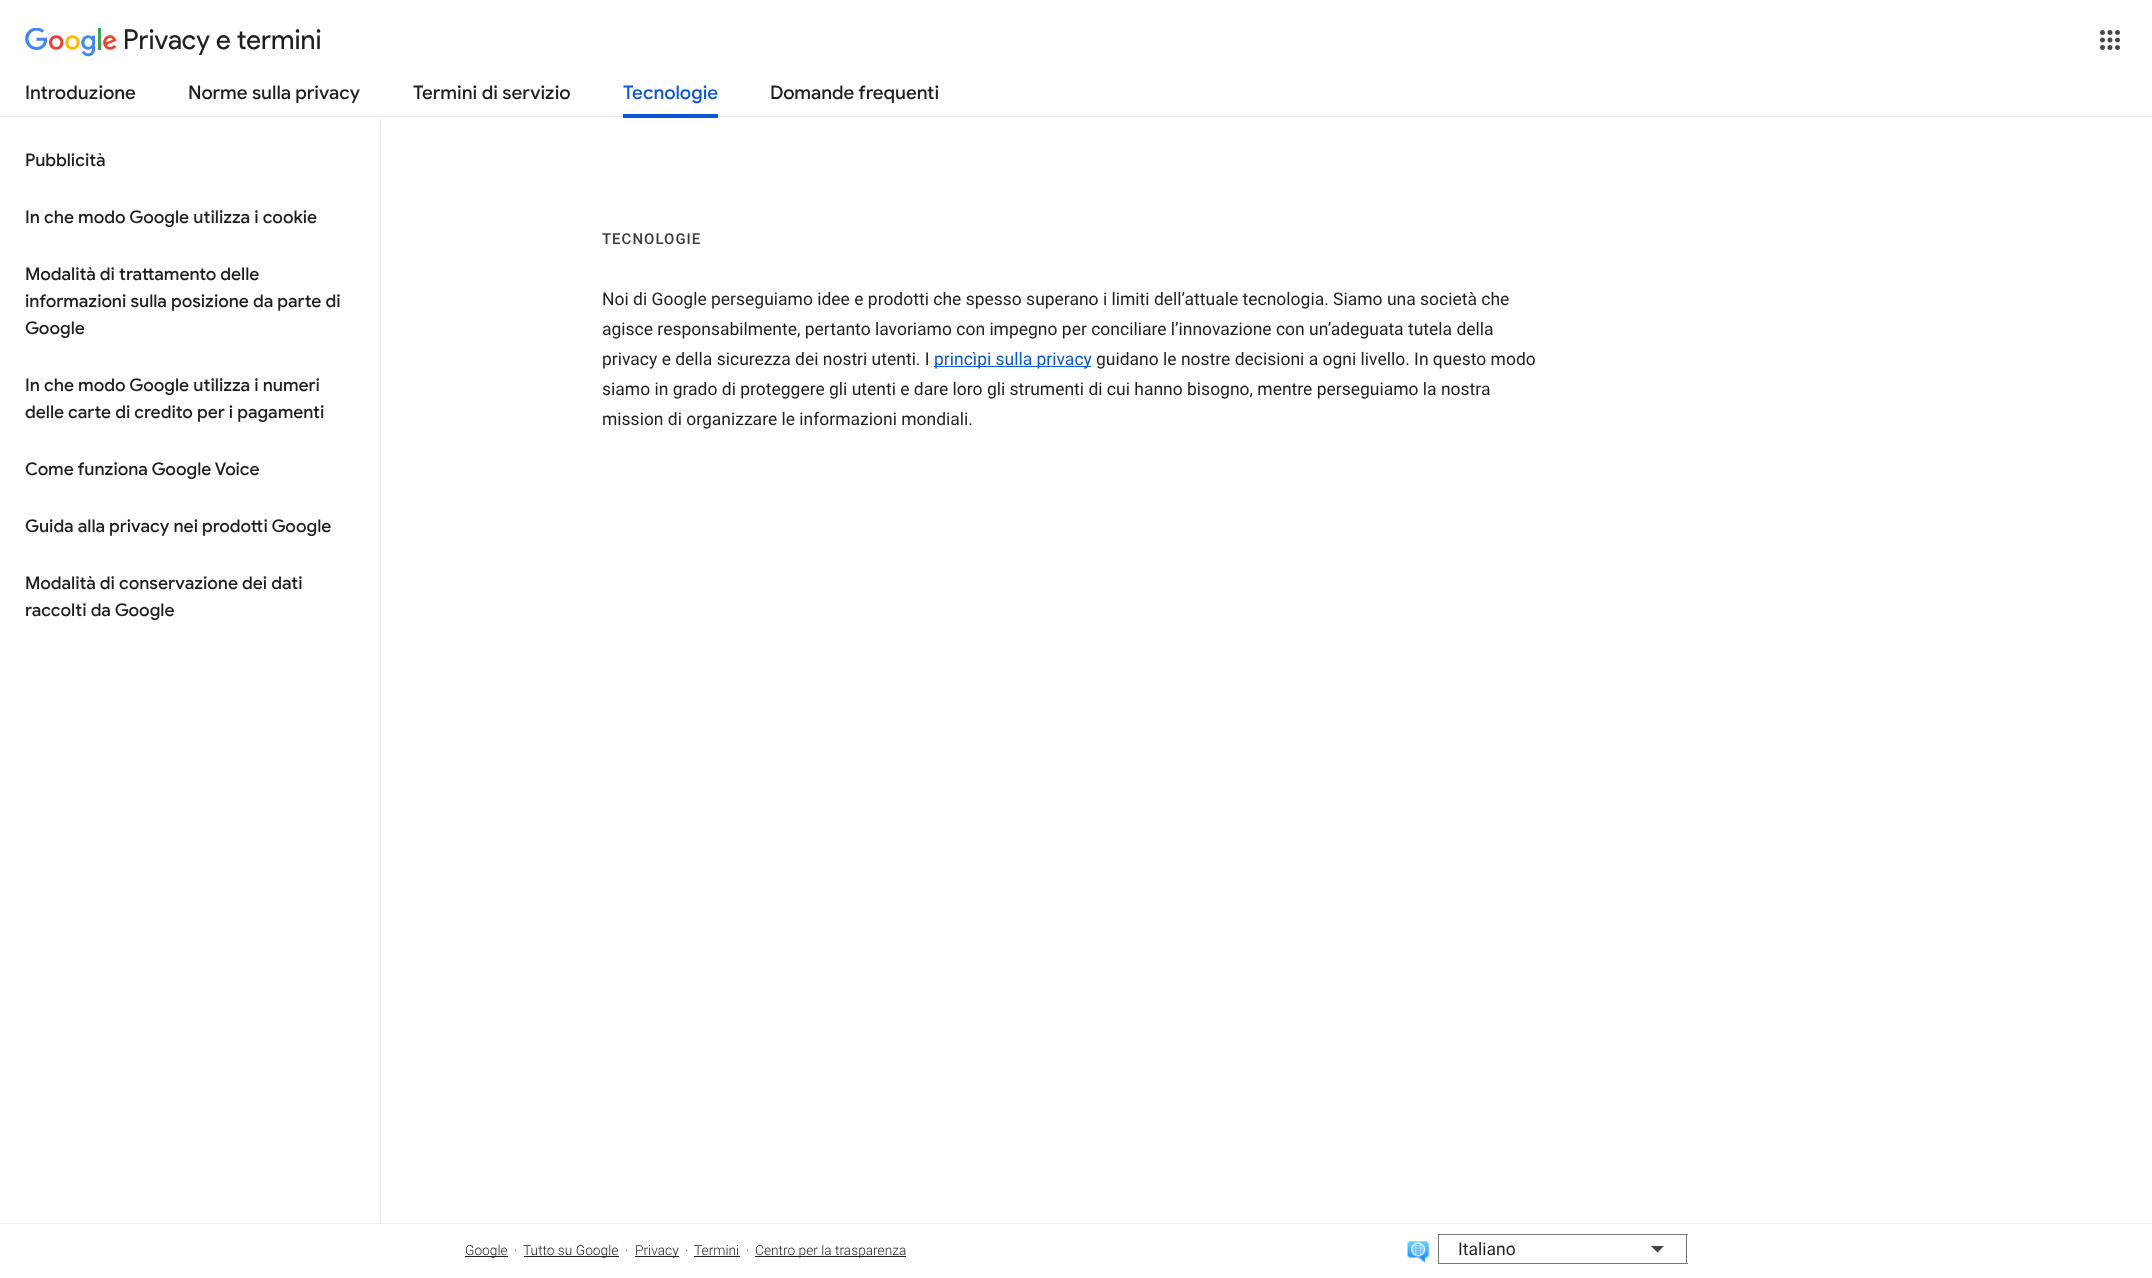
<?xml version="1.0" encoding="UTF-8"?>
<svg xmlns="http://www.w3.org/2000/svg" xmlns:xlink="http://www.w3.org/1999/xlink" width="2152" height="1278">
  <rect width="100%" height="100%" fill="#ffffff" />
  <image x="25" y="28" width="92" height="29" xlink:href="image1.png" />
  <image x="2100" y="30" width="20" height="20" xlink:href="image2.png" />
  <rect y="116" width="2152" height="1" fill="#e9eef6" />
  <rect x="623" y="114" width="95" height="4" fill="#0b57d0" />
  <rect x="380" y="118" width="1" height="1105" fill="#e9eef6" />
  <rect x="934" y="366" width="157" height="1" fill="#0b57d0" />
  <rect y="1223" width="2152" height="1" fill="#eeeeee" />
  <rect x="465" y="1256" width="43" height="1" fill="#1f1f1f" />
  <rect x="524" y="1256" width="95" height="1" fill="#1f1f1f" />
  <rect x="635" y="1256" width="44" height="1" fill="#1f1f1f" />
  <rect x="694" y="1256" width="46" height="1" fill="#1f1f1f" />
  <rect x="755" y="1256" width="151" height="1" fill="#1f1f1f" />
  <image x="1407" y="1241" width="22" height="22" xlink:href="image3.png" />
  <rect x="1438" y="1234" width="250" height="1" fill="#747775" />
  <rect x="1438" y="1263" width="15" height="1" fill="#747775" />
  <rect x="1438" y="1234" width="1" height="30" fill="#747775" />
  <rect x="1686" y="1234" width="1" height="30" fill="#747775" />
  <rect x="1453" y="1263" width="235" height="1" fill="#747775" />
  <path d="M 1651 1246 l 6.5 6.5 l 6.5 -6.5 z" fill="#444746" fill-rule="evenodd" />
  <text x="123" y="49" style="font-family: Product Sans; font-size: 27.5px; fill: #1f1f1f">Privacy e termini</text>
  <text x="25" y="99" style="font-family: Google Sans; font-size: 18.75px; font-weight: 500; fill: #1f1f1f">Introduzione</text>
  <text x="188" y="99" style="font-family: Google Sans; font-size: 18.75px; font-weight: 500; fill: #1f1f1f">Norme sulla privacy</text>
  <text x="413" y="99" style="font-family: Google Sans; font-size: 18.75px; font-weight: 500; fill: #1f1f1f">Termini di servizio</text>
  <text x="623" y="99" style="font-family: Google Sans; font-size: 18.75px; font-weight: 500; fill: #0b57d0">Tecnologie</text>
  <text x="770" y="99" style="font-family: Google Sans; font-size: 18.75px; font-weight: 500; fill: #1f1f1f">Domande frequenti</text>
  <text x="25" y="166" style="font-family: Google Sans; font-size: 17.5px; font-weight: 500; fill: #1f1f1f">Pubblicità</text>
  <text x="25" y="223" style="font-family: Google Sans; font-size: 17.5px; font-weight: 500; fill: #1f1f1f">In che modo Google utilizza i cookie</text>
  <text x="25" y="280" style="font-family: Google Sans; font-size: 17.5px; font-weight: 500; fill: #1f1f1f">Modalità di trattamento delle</text>
  <text x="25" y="307" style="font-family: Google Sans; font-size: 17.5px; font-weight: 500; fill: #1f1f1f">informazioni sulla posizione da parte di</text>
  <text x="25" y="334" style="font-family: Google Sans; font-size: 17.5px; font-weight: 500; fill: #1f1f1f">Google</text>
  <text x="25" y="391" style="font-family: Google Sans; font-size: 17.5px; font-weight: 500; fill: #1f1f1f">In che modo Google utilizza i numeri</text>
  <text x="25" y="418" style="font-family: Google Sans; font-size: 17.5px; font-weight: 500; fill: #1f1f1f">delle carte di credito per i pagamenti</text>
  <text x="25" y="475" style="font-family: Google Sans; font-size: 17.5px; font-weight: 500; fill: #1f1f1f">Come funziona Google Voice</text>
  <text x="25" y="532" style="font-family: Google Sans; font-size: 17.5px; font-weight: 500; fill: #1f1f1f">Guida alla privacy nei prodotti Google</text>
  <text x="25" y="589" style="font-family: Google Sans; font-size: 17.5px; font-weight: 500; fill: #1f1f1f">Modalità di conservazione dei dati</text>
  <text x="25" y="616" style="font-family: Google Sans; font-size: 17.5px; font-weight: 500; fill: #1f1f1f">raccolti da Google</text>
  <text x="602" y="244" style="font-family: Roboto; font-size: 15px; font-weight: 500; letter-spacing: 1px; fill: #3c4043">TECNOLOGIE</text>
  <text x="602" y="305" style="font-family: Roboto; font-size: 17.5px; fill: #1f1f1f">Noi di Google perseguiamo idee e prodotti che spesso superano i limiti dell’attuale tecnologia. Siamo una società che</text>
  <text x="602" y="335" style="font-family: Roboto; font-size: 17.5px; fill: #1f1f1f">agisce responsabilmente, pertanto lavoriamo con impegno per conciliare l’innovazione con un’adeguata tutela della</text>
  <text x="602" y="365" style="font-family: Roboto; font-size: 17.5px; fill: #1f1f1f">privacy e della sicurezza dei nostri utenti. I</text>
  <text x="934" y="365" style="font-family: Roboto; font-size: 17.5px; fill: #0b57d0">princìpi sulla privacy</text>
  <text x="1096" y="365" style="font-family: Roboto; font-size: 17.5px; fill: #1f1f1f">guidano le nostre decisioni a ogni livello. In questo modo</text>
  <text x="602" y="395" style="font-family: Roboto; font-size: 17.5px; fill: #1f1f1f">siamo in grado di proteggere gli utenti e dare loro gli strumenti di cui hanno bisogno, mentre perseguiamo la nostra</text>
  <text x="602" y="425" style="font-family: Roboto; font-size: 17.5px; fill: #1f1f1f">mission di organizzare le informazioni mondiali.</text>
  <text x="465" y="1255" style="font-family: Roboto; font-size: 13.75px; font-weight: 300; fill: #1f1f1f">Google</text>
  <text x="514" y="1255" style="font-family: Roboto; font-size: 13.75px; font-weight: 300; fill: #1f1f1f">·</text>
  <text x="523" y="1255" style="font-family: Roboto; font-size: 13.75px; font-weight: 300; fill: #1f1f1f">Tutto su Google</text>
  <text x="625" y="1255" style="font-family: Roboto; font-size: 13.75px; font-weight: 300; fill: #1f1f1f">·</text>
  <text x="635" y="1255" style="font-family: Roboto; font-size: 13.75px; font-weight: 300; fill: #1f1f1f">Privacy</text>
  <text x="685" y="1255" style="font-family: Roboto; font-size: 13.75px; font-weight: 300; fill: #1f1f1f">·</text>
  <text x="694" y="1255" style="font-family: Roboto; font-size: 13.75px; font-weight: 300; fill: #1f1f1f">Termini</text>
  <text x="746" y="1255" style="font-family: Roboto; font-size: 13.75px; font-weight: 300; fill: #1f1f1f">·</text>
  <text x="755" y="1255" style="font-family: Roboto; font-size: 13.75px; font-weight: 300; fill: #1f1f1f">Centro per la trasparenza</text>
  <text x="1458" y="1255" style="font-family: Roboto; font-size: 17.5px; fill: #1f1f1f">Italiano</text>
</svg>
